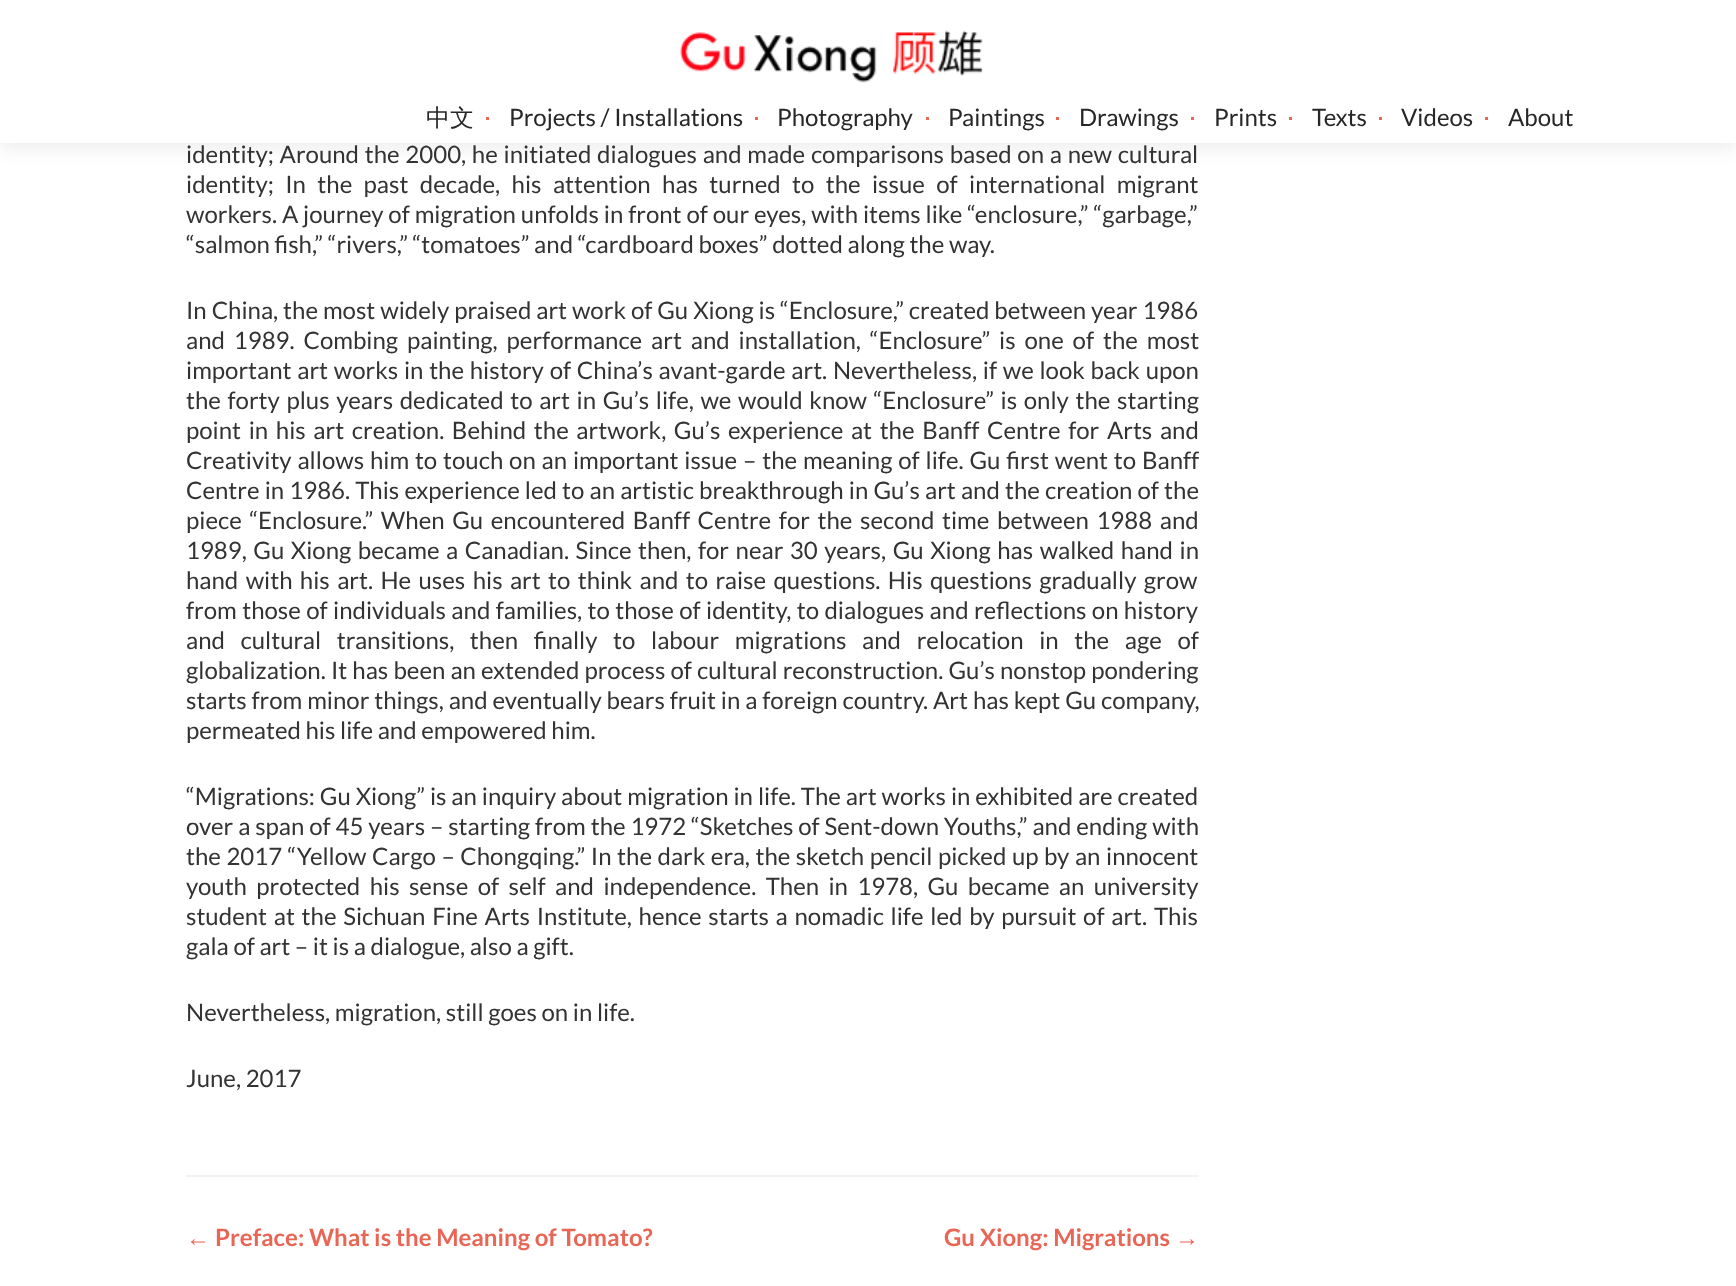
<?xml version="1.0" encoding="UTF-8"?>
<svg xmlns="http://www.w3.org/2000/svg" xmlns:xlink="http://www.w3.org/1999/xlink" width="1736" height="1286">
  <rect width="100%" height="100%" fill="#ffffff" />
  <rect y="8" width="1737" height="142" fill="#323232" fill-opacity="0.08" filter="blur(8px)" />
  <rect width="1736" height="143" fill="#ffffff" />
  <image x="680" y="30" width="303" height="53" xlink:href="image1.png" />
  <rect x="486" y="117" width="3" height="3" fill="#e96656" />
  <rect x="755" y="117" width="3" height="3" fill="#e96656" />
  <rect x="926" y="117" width="3" height="3" fill="#e96656" />
  <rect x="1056" y="117" width="3" height="3" fill="#e96656" />
  <rect x="1191" y="117" width="3" height="3" fill="#e96656" />
  <rect x="1289" y="117" width="3" height="3" fill="#e96656" />
  <rect x="1379" y="117" width="3" height="3" fill="#e96656" />
  <rect x="1485" y="117" width="3" height="3" fill="#e96656" />
  <rect x="186" y="1175" width="1013" height="2" fill="#f2f2f2" />
  <text x="426" y="126" style="font-family: WenQuanYi Zen Hei; font-size: 24px; font-weight: 500; fill: #272727">中文</text>
  <text x="509" y="126" style="font-family: Lato; font-size: 24px; fill: #272727">Projects / Installations</text>
  <text x="777" y="126" style="font-family: Lato; font-size: 24px; fill: #272727">Photography</text>
  <text x="948" y="126" style="font-family: Lato; font-size: 24px; fill: #272727">Paintings</text>
  <text x="1079" y="126" style="font-family: Lato; font-size: 24px; fill: #272727">Drawings</text>
  <text x="1214" y="126" style="font-family: Lato; font-size: 24px; fill: #272727">Prints</text>
  <text x="1312" y="126" style="font-family: Lato; font-size: 24px; fill: #272727">Texts</text>
  <text x="1401" y="126" style="font-family: Lato; font-size: 24px; fill: #272727">Videos</text>
  <text x="1508" y="126" style="font-family: Lato; font-size: 24px; fill: #272727">About</text>
  <text x="186" y="163" word-spacing="1.1" style="font-family: Lato; font-size: 24px; fill: #333333">identity; Around the 2000, he initiated dialogues and made comparisons based on a new cultural</text>
  <text x="186" y="193" word-spacing="6.75" style="font-family: Lato; font-size: 24px; fill: #333333">identity; In the past decade, his attention has turned to the issue of international migrant</text>
  <text x="186" y="223" word-spacing="0.25" style="font-family: Lato; font-size: 24px; fill: #333333">workers. A journey of migration unfolds in front of our eyes, with items like “enclosure,” “garbage,”</text>
  <text x="186" y="253" style="font-family: Lato; font-size: 24px; fill: #333333">“salmon fish,” “rivers,” “tomatoes” and “cardboard boxes” dotted along the way.</text>
  <text x="186" y="319" word-spacing="0.3" style="font-family: Lato; font-size: 24px; fill: #333333">In China, the most widely praised art work of Gu Xiong is “Enclosure,” created between year 1986</text>
  <text x="186" y="349" word-spacing="4.25" style="font-family: Lato; font-size: 24px; fill: #333333">and 1989. Combing painting, performance art and installation, “Enclosure” is one of the most</text>
  <text x="186" y="379" word-spacing="1.1" style="font-family: Lato; font-size: 24px; fill: #333333">important art works in the history of China’s avant-garde art. Nevertheless, if we look back upon</text>
  <text x="186" y="409" word-spacing="2" style="font-family: Lato; font-size: 24px; fill: #333333">the forty plus years dedicated to art in Gu’s life, we would know “Enclosure” is only the starting</text>
  <text x="186" y="439" word-spacing="3" style="font-family: Lato; font-size: 24px; fill: #333333">point in his art creation. Behind the artwork, Gu’s experience at the Banff Centre for Arts and</text>
  <text x="186" y="469" word-spacing="1.2" style="font-family: Lato; font-size: 24px; fill: #333333">Creativity allows him to touch on an important issue – the meaning of life. Gu first went to Banff</text>
  <text x="186" y="499" word-spacing="0.5" style="font-family: Lato; font-size: 24px; fill: #333333">Centre in 1986. This experience led to an artistic breakthrough in Gu’s art and the creation of the</text>
  <text x="186" y="529" word-spacing="3" style="font-family: Lato; font-size: 24px; fill: #333333">piece “Enclosure.” When Gu encountered Banff Centre for the second time between 1988 and</text>
  <text x="186" y="559" word-spacing="1.9" style="font-family: Lato; font-size: 24px; fill: #333333">1989, Gu Xiong became a Canadian. Since then, for near 30 years, Gu Xiong has walked hand in</text>
  <text x="186" y="589" word-spacing="2.75" style="font-family: Lato; font-size: 24px; fill: #333333">hand with his art. He uses his art to think and to raise questions. His questions gradually grow</text>
  <text x="186" y="619" word-spacing="0.75" style="font-family: Lato; font-size: 24px; fill: #333333">from those of individuals and families, to those of identity, to dialogues and reflections on history</text>
  <text x="186" y="649" word-spacing="11" style="font-family: Lato; font-size: 24px; fill: #333333">and cultural transitions, then finally to labour migrations and relocation in the age of</text>
  <text x="186" y="679" word-spacing="0.5" style="font-family: Lato; font-size: 24px; fill: #333333">globalization. It has been an extended process of cultural reconstruction. Gu’s nonstop pondering</text>
  <text x="186" y="709" word-spacing="0.25" style="font-family: Lato; font-size: 24px; fill: #333333">starts from minor things, and eventually bears fruit in a foreign country. Art has kept Gu company,</text>
  <text x="186" y="739" style="font-family: Lato; font-size: 24px; fill: #333333">permeated his life and empowered him.</text>
  <text x="186" y="805" word-spacing="0.3" style="font-family: Lato; font-size: 24px; fill: #333333">“Migrations: Gu Xiong” is an inquiry about migration in life. The art works in exhibited are created</text>
  <text x="186" y="835" word-spacing="0.25" style="font-family: Lato; font-size: 24px; fill: #333333">over a span of 45 years – starting from the 1972 “Sketches of Sent-down Youths,” and ending with</text>
  <text x="186" y="865" word-spacing="0.9" style="font-family: Lato; font-size: 24px; fill: #333333">the 2017 “Yellow Cargo – Chongqing.” In the dark era, the sketch pencil picked up by an innocent</text>
  <text x="186" y="895" word-spacing="4.75" style="font-family: Lato; font-size: 24px; fill: #333333">youth protected his sense of self and independence. Then in 1978, Gu became an university</text>
  <text x="186" y="925" word-spacing="2.1" style="font-family: Lato; font-size: 24px; fill: #333333">student at the Sichuan Fine Arts Institute, hence starts a nomadic life led by pursuit of art. This</text>
  <text x="186" y="955" style="font-family: Lato; font-size: 24px; fill: #333333">gala of art – it is a dialogue, also a gift.</text>
  <text x="186" y="1021" style="font-family: Lato; font-size: 24px; fill: #333333">Nevertheless, migration, still goes on in life.</text>
  <text x="186" y="1087" style="font-family: Lato; font-size: 24px; fill: #333333">June, 2017</text>
  <text x="186" y="1246" style="font-family: Liberation Sans; font-size: 24px; font-weight: bold; fill: #e96656">←</text>
  <text x="215" y="1246" style="font-family: Lato; font-size: 24px; font-weight: bold; fill: #e96656">Preface: What is the Meaning of Tomato?</text>
  <text x="944" y="1246" style="font-family: Lato; font-size: 24px; font-weight: bold; fill: #e96656">Gu Xiong: Migrations</text>
  <text x="1175" y="1246" style="font-family: Liberation Sans; font-size: 24px; font-weight: bold; fill: #e96656">→</text>
</svg>
